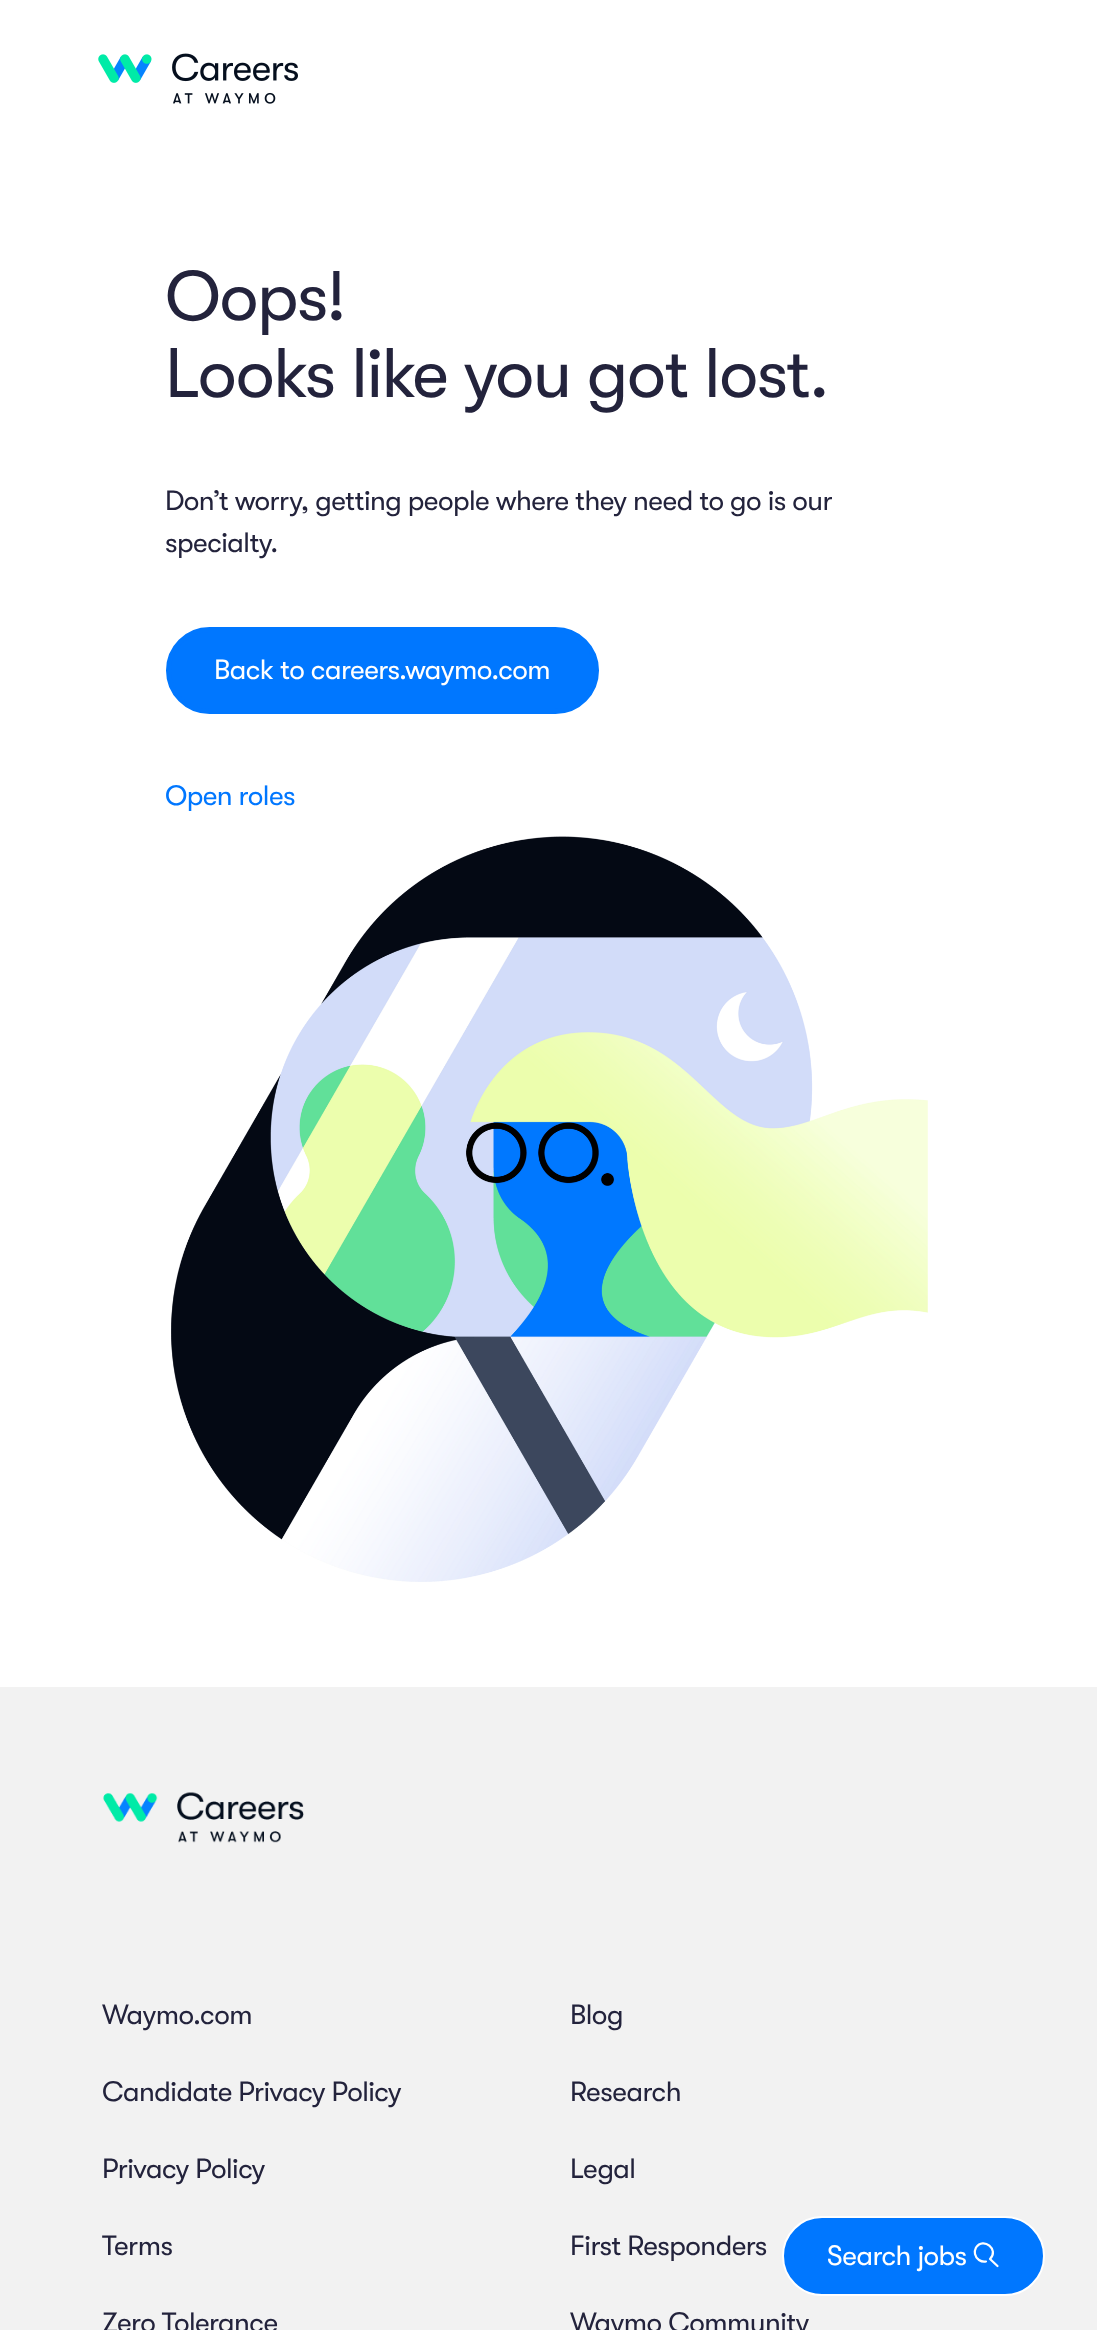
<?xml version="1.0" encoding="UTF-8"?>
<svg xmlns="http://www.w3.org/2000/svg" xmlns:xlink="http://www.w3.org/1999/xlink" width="1097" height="2330">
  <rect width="100%" height="100%" fill="#ffffff" />
  <image x="98" y="53" width="200" height="51" xlink:href="image1.png" />
  <rect x="168.5" y="629.5" width="428" height="82" rx="41" fill="#0077ff" stroke="#0077ff" stroke-width="5" />
  <image x="171" y="836" width="757" height="746" xlink:href="image2.png" />
  <rect y="1687" width="1097" height="643" fill="#f2f2f2" />
  <image x="103" y="1792" width="201" height="51" xlink:href="image3.png" />
  <rect x="783" y="2217" width="261" height="78" rx="39" fill="#0077ff" stroke="#ffffff" stroke-width="2" />
  <path d="M 997.5 2266 l -7.5 -7 c 9.5 -9.5 -6.5 -22.5 -14 -11.5 c -1 2 -1.5 4.5 -1 6.5 c 1 5 6 8.5 11 7.5" fill="none" stroke="#ffffff" stroke-width="2.2" stroke-linecap="round" stroke-linejoin="round" />
  <text x="165" y="320" style="font-family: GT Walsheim; font-size: 70px; letter-spacing: -1.4px; fill: #23233c">Oops!</text>
  <text x="165" y="397" style="font-family: GT Walsheim; font-size: 70px; letter-spacing: -1.4px; fill: #23233c">Looks like you got lost.</text>
  <text x="165" y="510" style="font-family: GT Walsheim; font-size: 28px; letter-spacing: -0.55px; fill: #23233c">Don’t worry, getting people where they need to go is our</text>
  <text x="165" y="552" style="font-family: GT Walsheim; font-size: 28px; letter-spacing: -0.55px; fill: #23233c">specialty.</text>
  <text x="214" y="679" style="font-family: GT Walsheim; font-size: 28px; letter-spacing: -0.55px; fill: #ffffff">Back to careers.waymo.com</text>
  <text x="165" y="805" style="font-family: GT Walsheim; font-size: 28px; letter-spacing: -0.55px; fill: #0077ff">Open roles</text>
  <text x="102" y="2024" style="font-family: GT Walsheim; font-size: 28px; letter-spacing: -0.55px; fill: #23233c">Waymo.com</text>
  <text x="102" y="2101" style="font-family: GT Walsheim; font-size: 28px; letter-spacing: -0.55px; fill: #23233c">Candidate Privacy Policy</text>
  <text x="102" y="2178" style="font-family: GT Walsheim; font-size: 28px; letter-spacing: -0.55px; fill: #23233c">Privacy Policy</text>
  <text x="102" y="2255" style="font-family: GT Walsheim; font-size: 28px; letter-spacing: -0.55px; fill: #23233c">Terms</text>
  <text x="102" y="2332" style="font-family: GT Walsheim; font-size: 28px; letter-spacing: -0.55px; fill: #23233c">Zero Tolerance</text>
  <text x="570" y="2024" style="font-family: GT Walsheim; font-size: 28px; letter-spacing: -0.55px; fill: #23233c">Blog</text>
  <text x="570" y="2101" style="font-family: GT Walsheim; font-size: 28px; letter-spacing: -0.55px; fill: #23233c">Research</text>
  <text x="570" y="2178" style="font-family: GT Walsheim; font-size: 28px; letter-spacing: -0.55px; fill: #23233c">Legal</text>
  <text x="570" y="2255" style="font-family: GT Walsheim; font-size: 28px; letter-spacing: -0.55px; fill: #23233c">First Responders</text>
  <text x="570" y="2332" style="font-family: GT Walsheim; font-size: 28px; letter-spacing: -0.55px; fill: #23233c">Waymo Community</text>
  <text x="827" y="2265" style="font-family: GT Walsheim; font-size: 28px; letter-spacing: -0.55px; fill: #ffffff">Search jobs</text>
</svg>
